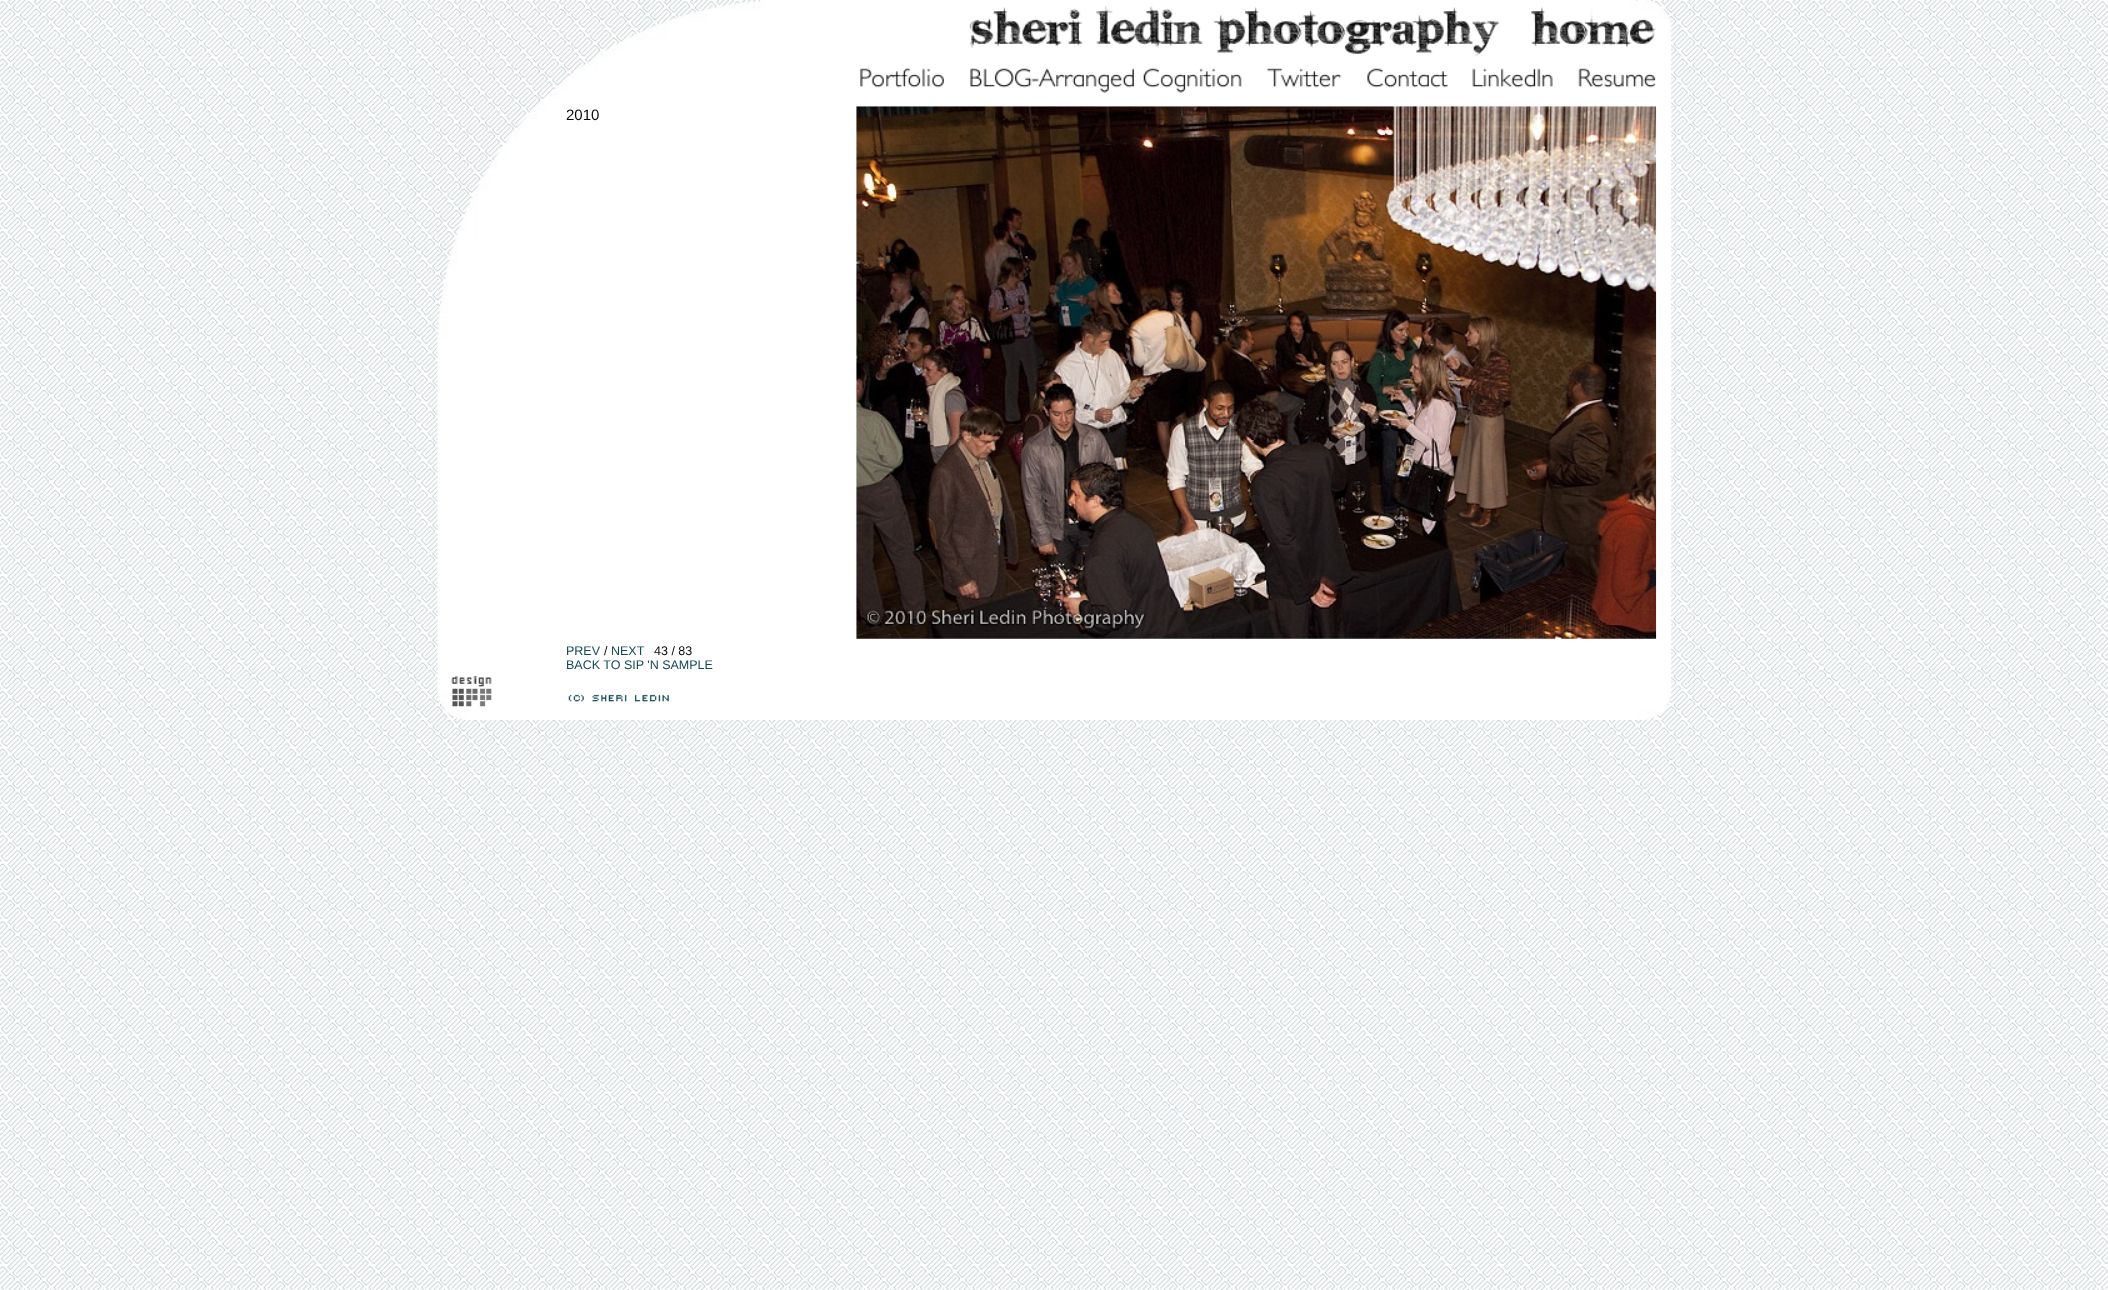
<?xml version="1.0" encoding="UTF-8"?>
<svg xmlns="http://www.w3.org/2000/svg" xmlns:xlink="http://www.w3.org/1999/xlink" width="2108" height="1290">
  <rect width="100%" height="100%" fill="#ffffff" />
  <image x="0" y="0" width="2108" height="1290" xlink:href="image1.png" />
  <image x="437" y="0" width="1235" height="720" xlink:href="image2.png" />
  <image x="969" y="6" width="687" height="51" xlink:href="image3.png" />
  <image x="860" y="68" width="84" height="20" xlink:href="image4.png" />
  <image x="970" y="68" width="272" height="25" xlink:href="image5.png" />
  <image x="1267" y="68" width="75" height="20" xlink:href="image6.png" />
  <image x="1367" y="68" width="81" height="20" xlink:href="image7.png" />
  <image x="1472" y="68" width="81" height="20" xlink:href="image8.png" />
  <image x="1578" y="68" width="78" height="20" xlink:href="image9.png" />
  <image x="856" y="106" width="801" height="533" xlink:href="image10.png" />
  <image x="451" y="676" width="41" height="31" xlink:href="image11.png" />
  <image x="568" y="694" width="101" height="8" xlink:href="image12.png" />
  <text x="566" y="120" style="font-family: Liberation Sans; font-size: 15px; fill: #0b0a0a">2010</text>
  <text x="566" y="655" style="font-family: Liberation Sans; font-size: 12.5px; fill: #154956">PREV</text>
  <text x="604" y="655" style="font-family: Liberation Sans; font-size: 12.5px; fill: #0b0a0a">/</text>
  <text x="611" y="655" style="font-family: Liberation Sans; font-size: 12.5px; fill: #154956">NEXT</text>
  <text x="654" y="655" style="font-family: Liberation Sans; font-size: 12.5px; fill: #0b0a0a">43 / 83</text>
  <text x="566" y="669" style="font-family: Liberation Sans; font-size: 12.5px; fill: #154956">BACK TO SIP 'N SAMPLE</text>
</svg>
